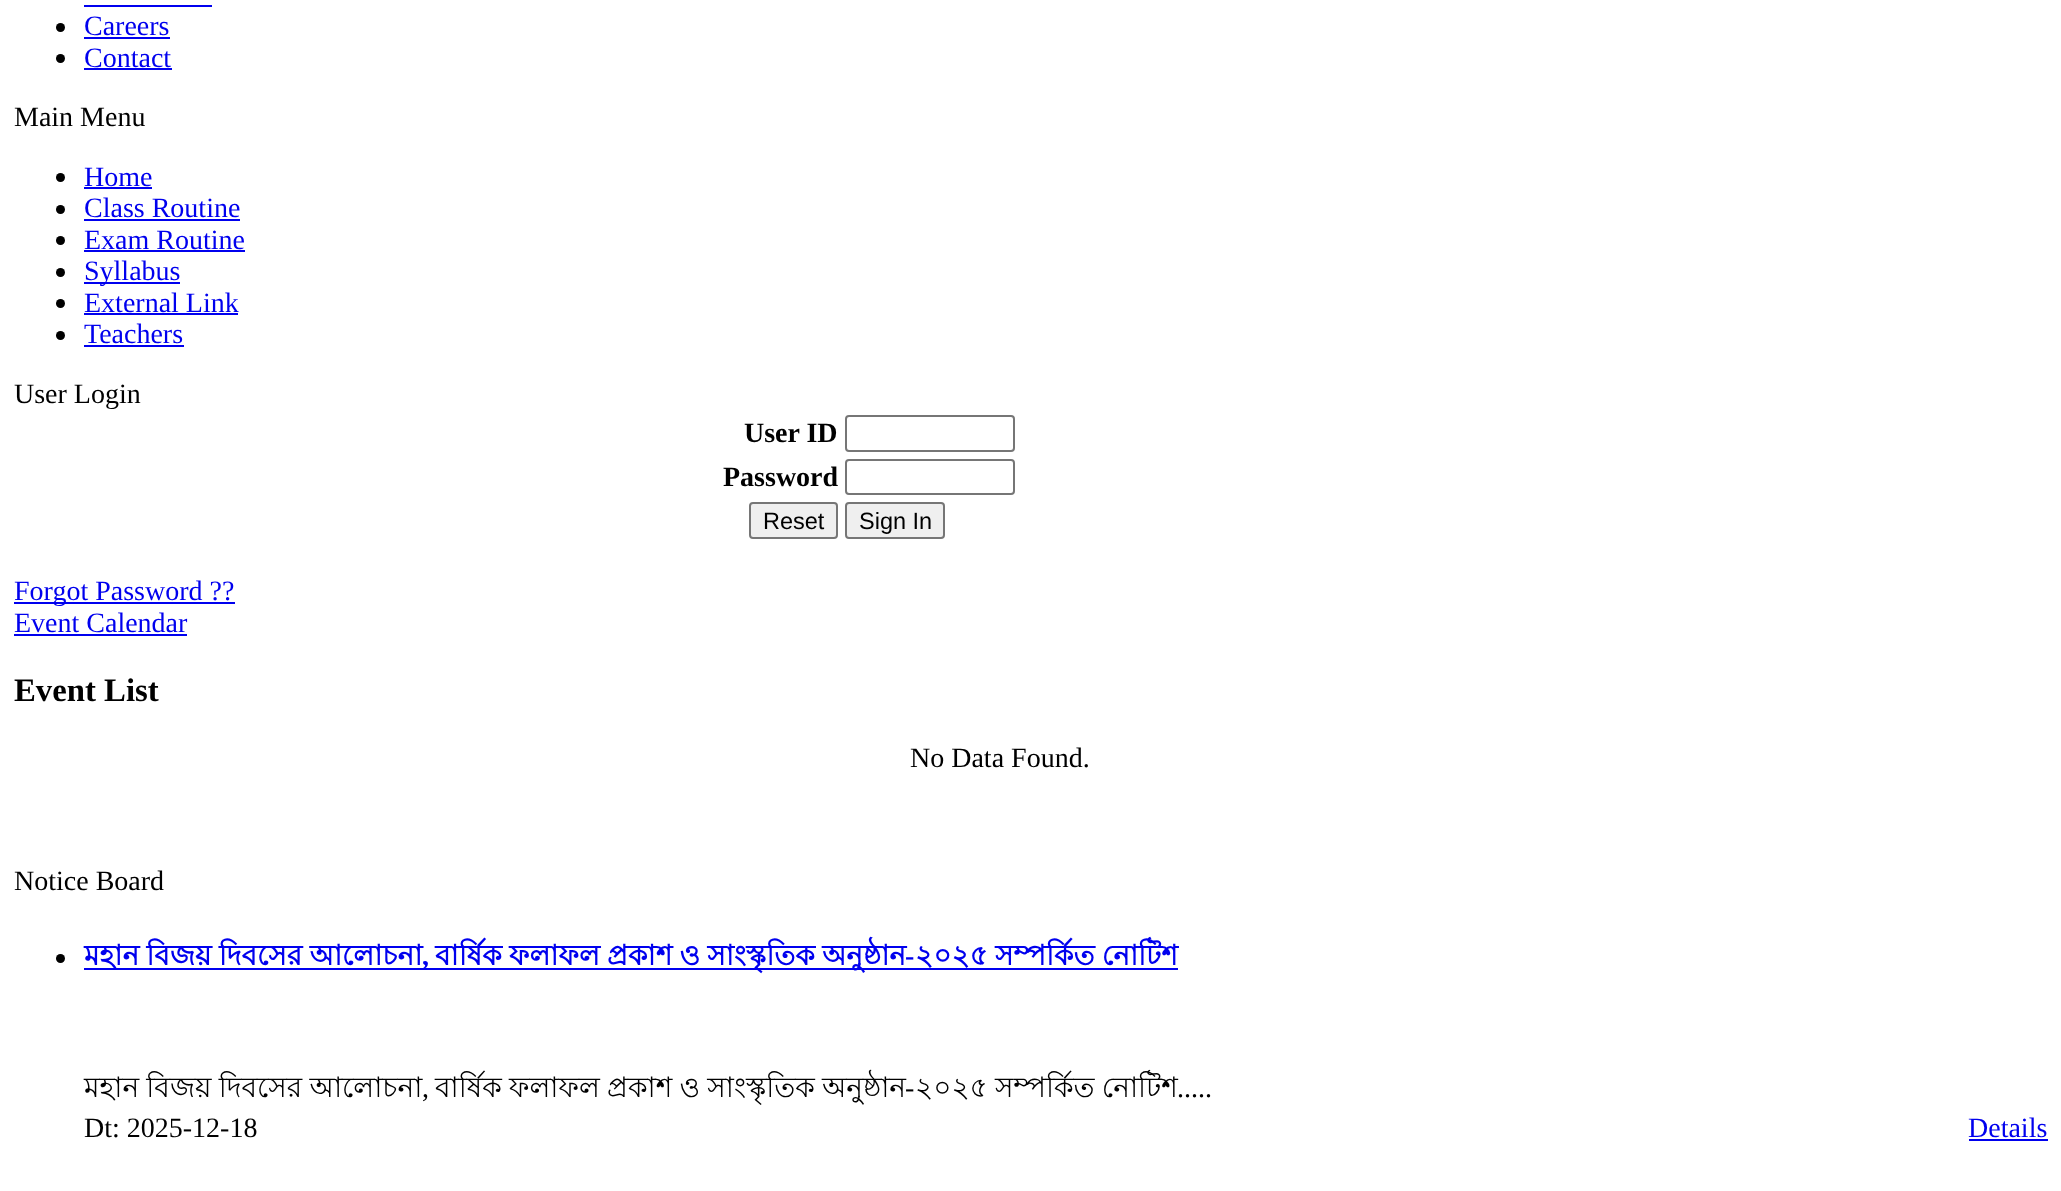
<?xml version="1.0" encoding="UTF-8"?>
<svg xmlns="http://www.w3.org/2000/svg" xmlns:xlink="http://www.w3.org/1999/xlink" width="2061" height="1191">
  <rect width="100%" height="100%" fill="#ffffff" />
  <rect x="84" y="5" width="128" height="2" fill="#0000ee" />
  <circle cx="60.5" cy="27.5" r="4.5" fill="#000000" />
  <rect x="84" y="37" width="86" height="2" fill="#0000ee" />
  <circle cx="60.5" cy="58.5" r="4.5" fill="#000000" />
  <rect x="84" y="68" width="88" height="2" fill="#0000ee" />
  <circle cx="60.5" cy="177.5" r="4.5" fill="#000000" />
  <rect x="84" y="187" width="68" height="2" fill="#0000ee" />
  <circle cx="60.5" cy="209.5" r="4.5" fill="#000000" />
  <rect x="84" y="219" width="156" height="2" fill="#0000ee" />
  <circle cx="60.5" cy="240.5" r="4.5" fill="#000000" />
  <rect x="84" y="250" width="161" height="2" fill="#0000ee" />
  <circle cx="60.5" cy="272.5" r="4.5" fill="#000000" />
  <rect x="84" y="282" width="96" height="2" fill="#0000ee" />
  <circle cx="60.5" cy="303.5" r="4.5" fill="#000000" />
  <rect x="84" y="313" width="154" height="2" fill="#0000ee" />
  <circle cx="60.5" cy="335.5" r="4.5" fill="#000000" />
  <rect x="84" y="345" width="100" height="2" fill="#0000ee" />
  <rect x="846" y="416" width="168" height="35" rx="3" fill="none" stroke="#767676" stroke-width="2" />
  <rect x="846" y="460" width="168" height="34" rx="3" fill="none" stroke="#767676" stroke-width="2" />
  <rect x="750" y="503" width="87" height="35" rx="3" fill="#efefef" stroke="#767676" stroke-width="2" />
  <rect x="846" y="503" width="98" height="35" rx="3" fill="#efefef" stroke="#767676" stroke-width="2" />
  <rect x="14" y="602" width="221" height="2" fill="#0000ee" />
  <rect x="14" y="634" width="173" height="2" fill="#0000ee" />
  <circle cx="60.5" cy="958.5" r="4.5" fill="#000000" />
  <rect x="84" y="968" width="1094" height="2" fill="#0000ee" />
  <rect x="1969" y="1139" width="79" height="2" fill="#0000ee" />
  <text x="84" y="35" style="font-family: Liberation Serif; font-size: 28px; fill: #0000ee">Careers</text>
  <text x="84" y="67" style="font-family: Liberation Serif; font-size: 28px; fill: #0000ee">Contact</text>
  <text x="14" y="126" style="font-family: Liberation Serif; font-size: 28px; fill: #000000">Main Menu</text>
  <text x="84" y="186" style="font-family: Liberation Serif; font-size: 28px; fill: #0000ee">Home</text>
  <text x="84" y="217" style="font-family: Liberation Serif; font-size: 28px; fill: #0000ee">Class Routine</text>
  <text x="84" y="249" style="font-family: Liberation Serif; font-size: 28px; fill: #0000ee">Exam Routine</text>
  <text x="84" y="280" style="font-family: Liberation Serif; font-size: 28px; fill: #0000ee">Syllabus</text>
  <text x="84" y="312" style="font-family: Liberation Serif; font-size: 28px; fill: #0000ee">External Link</text>
  <text x="84" y="343" style="font-family: Liberation Serif; font-size: 28px; fill: #0000ee">Teachers</text>
  <text x="14" y="403" style="font-family: Liberation Serif; font-size: 28px; fill: #000000">User Login</text>
  <text x="744" y="442" style="font-family: Liberation Serif; font-size: 28px; font-weight: bold; fill: #000000">User ID</text>
  <text x="723" y="486" style="font-family: Liberation Serif; font-size: 28px; font-weight: bold; fill: #000000">Password</text>
  <text x="763" y="529" style="font-family: Liberation Sans; font-size: 23.5px; fill: #000000">Reset</text>
  <text x="859" y="529" style="font-family: Liberation Sans; font-size: 23.5px; fill: #000000">Sign In</text>
  <text x="14" y="600" style="font-family: Liberation Serif; font-size: 28px; fill: #0000ee">Forgot Password ??</text>
  <text x="14" y="632" style="font-family: Liberation Serif; font-size: 28px; fill: #0000ee">Event Calendar</text>
  <text x="14" y="701" style="font-family: Liberation Serif; font-size: 32.75px; font-weight: bold; fill: #000000">Event List</text>
  <text x="910" y="767" style="font-family: Liberation Serif; font-size: 28px; fill: #000000">No Data Found.</text>
  <text x="14" y="890" style="font-family: Liberation Serif; font-size: 28px; fill: #000000">Notice Board</text>
  <text x="84" y="965" word-spacing="-0.5" style="font-family: Lohit Bengali; font-size: 28px; font-weight: bold; fill: #0000ee">মহান বিজয় দিবসের আলোচনা</text>
  <text x="435" y="965" word-spacing="-0.5" style="font-family: Lohit Bengali; font-size: 28px; font-weight: bold; fill: #0000ee">বার্ষিক ফলাফল প্রকাশ ও সাংস্কৃতিক অনুষ্ঠান</text>
  <text x="905" y="965" style="font-family: Liberation Serif; font-size: 28px; font-weight: bold; fill: #0000ee">-</text>
  <text x="915" y="965" word-spacing="-0.5" style="font-family: Lohit Bengali; font-size: 28px; font-weight: bold; fill: #0000ee">২০২৫ সম্পর্কিত নোটিশ</text>
  <text x="422" y="965" style="font-family: Liberation Serif; font-size: 28px; font-weight: bold; fill: #0000ee">,</text>
  <text x="84" y="1097" word-spacing="-0.5" style="font-family: Lohit Bengali; font-size: 28px; fill: #000000">মহান বিজয় দিবসের আলোচনা</text>
  <text x="435" y="1097" word-spacing="-0.5" style="font-family: Lohit Bengali; font-size: 28px; fill: #000000">বার্ষিক ফলাফল প্রকাশ ও সাংস্কৃতিক অনুষ্ঠান</text>
  <text x="905" y="1097" style="font-family: Liberation Serif; font-size: 28px; fill: #000000">-</text>
  <text x="915" y="1097" word-spacing="-0.5" style="font-family: Lohit Bengali; font-size: 28px; fill: #000000">২০২৫ সম্পর্কিত নোটিশ</text>
  <text x="422" y="1097" style="font-family: Liberation Serif; font-size: 28px; fill: #000000">,</text>
  <text x="1177" y="1097" style="font-family: Liberation Serif; font-size: 28px; fill: #000000">.....</text>
  <text x="84" y="1137" style="font-family: Liberation Serif; font-size: 28px; fill: #000000">Dt: 2025-12-18</text>
  <text x="1968" y="1137" style="font-family: Liberation Serif; font-size: 28px; fill: #0000ee">Details</text>
</svg>
